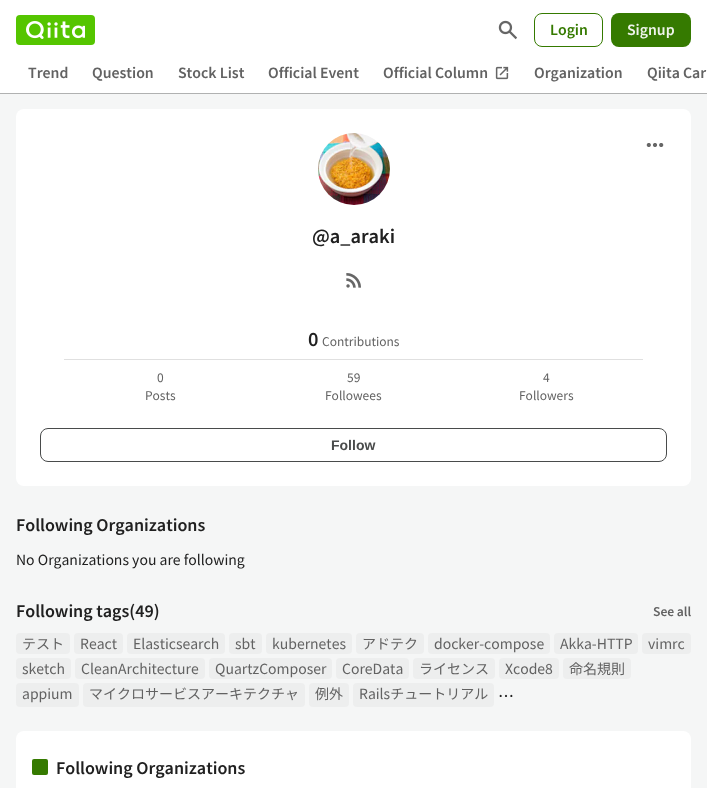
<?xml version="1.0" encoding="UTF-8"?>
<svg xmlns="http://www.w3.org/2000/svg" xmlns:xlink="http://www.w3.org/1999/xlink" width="707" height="788">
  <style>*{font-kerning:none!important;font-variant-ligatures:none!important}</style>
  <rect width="100%" height="100%" fill="#f5f6f6" />
  <rect x="-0.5" y="-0.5" width="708" height="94" fill="none" stroke="#e1e2e2" />
  <rect y="1" width="707" height="93" fill="#1e2121" fill-opacity="0.25" filter="blur(0.5px)" />
  <rect width="707" height="93" fill="#ffffff" />
  <rect x="16" y="15" width="79" height="30" rx="4" fill="#55c500" />
  <image x="26" y="21" width="59" height="18" xlink:href="image1.png" />
  <image x="498" y="20" width="19" height="20" xlink:href="image2.png" />
  <rect x="534.5" y="13.5" width="68" height="33" rx="7.5" fill="none" stroke="#357a00" />
  <rect x="611" y="13" width="80" height="34" rx="8" fill="#357a00" />
  <image x="495" y="66" width="14" height="14" xlink:href="image3.png" />
  <rect x="16" y="109" width="675" height="377" rx="8" fill="#ffffff" />
  <image x="646" y="143" width="18" height="4" xlink:href="image4.png" />
  <image x="318" y="133" width="72" height="72" xlink:href="image5.png" />
  <image x="346" y="273" width="15" height="15" xlink:href="image6.png" />
  <rect x="64" y="359" width="579" height="1" fill="#e0e0e0" />
  <rect x="40.5" y="428.5" width="626" height="33" rx="7.5" fill="none" stroke="#494b4b" />
  <rect x="16" y="633" width="54" height="21" rx="4" fill="#edeeee" />
  <rect x="74" y="633" width="49" height="21" rx="4" fill="#edeeee" />
  <rect x="127" y="633" width="98" height="21" rx="4" fill="#edeeee" />
  <rect x="229" y="633" width="33" height="21" rx="4" fill="#edeeee" />
  <rect x="266" y="633" width="86" height="21" rx="4" fill="#edeeee" />
  <rect x="356" y="633" width="68" height="21" rx="4" fill="#edeeee" />
  <rect x="428" y="633" width="122" height="21" rx="4" fill="#edeeee" />
  <rect x="554" y="633" width="84" height="21" rx="4" fill="#edeeee" />
  <rect x="642" y="633" width="49" height="21" rx="4" fill="#edeeee" />
  <rect x="16" y="658" width="55" height="21" rx="4" fill="#edeeee" />
  <rect x="75" y="658" width="130" height="21" rx="4" fill="#edeeee" />
  <rect x="209" y="658" width="123" height="21" rx="4" fill="#edeeee" />
  <rect x="336" y="658" width="73" height="21" rx="4" fill="#edeeee" />
  <rect x="413" y="658" width="82" height="21" rx="4" fill="#edeeee" />
  <rect x="499" y="658" width="60" height="21" rx="4" fill="#edeeee" />
  <rect x="563" y="658" width="68" height="21" rx="4" fill="#edeeee" />
  <rect x="16" y="683" width="63" height="24" rx="4" fill="#edeeee" />
  <rect x="83" y="683" width="222" height="24" rx="4" fill="#edeeee" />
  <rect x="309" y="683" width="40" height="24" rx="4" fill="#edeeee" />
  <rect x="353" y="683" width="141" height="24" rx="4" fill="#edeeee" />
  <rect x="16" y="731" width="675" height="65" rx="8" fill="#ffffff" />
  <rect x="32" y="759" width="16" height="16" rx="2" fill="#357a00" />
  <text x="550" y="35" style="font-family: Noto Sans JP; font-size: 14px; font-weight: 600; fill: #357a00">Login</text>
  <text x="627" y="35" style="font-family: Noto Sans JP; font-size: 14px; font-weight: 600; fill: #eff4eb">Signup</text>
  <text x="28" y="78" style="font-family: Noto Sans JP; font-size: 14px; font-weight: 600; fill: #626262">Trend</text>
  <text x="92" y="78" style="font-family: Noto Sans JP; font-size: 14px; font-weight: 600; fill: #626262">Question</text>
  <text x="178" y="78" style="font-family: Noto Sans JP; font-size: 14px; font-weight: 600; fill: #626262">Stock List</text>
  <text x="268" y="78" style="font-family: Noto Sans JP; font-size: 14px; font-weight: 600; fill: #626262">Official Event</text>
  <text x="383" y="78" style="font-family: Noto Sans JP; font-size: 14px; font-weight: 600; fill: #626262">Official Column</text>
  <text x="534" y="78" style="font-family: Noto Sans JP; font-size: 14px; font-weight: 600; fill: #626262">Organization</text>
  <text x="647" y="78" style="font-family: Noto Sans JP; font-size: 14px; font-weight: 600; fill: #626262">Qiita Car</text>
  <text x="312" y="243" style="font-family: Noto Sans JP; font-size: 18px; font-weight: 600; fill: #202020">@a_araki</text>
  <text x="308" y="346" style="font-family: Noto Sans JP; font-size: 18px; font-weight: 600; fill: #202020">0</text>
  <text x="322" y="346" style="font-family: Noto Sans JP; font-size: 12px; fill: #626262">Contributions</text>
  <text x="157" y="382" style="font-family: Noto Sans JP; font-size: 12px; fill: #626262">0</text>
  <text x="145" y="400" style="font-family: Noto Sans JP; font-size: 12px; fill: #626262">Posts</text>
  <text x="347" y="382" style="font-family: Noto Sans JP; font-size: 12px; fill: #626262">59</text>
  <text x="325" y="400" style="font-family: Noto Sans JP; font-size: 12px; fill: #626262">Followees</text>
  <text x="543" y="382" style="font-family: Noto Sans JP; font-size: 12px; fill: #626262">4</text>
  <text x="519" y="400" style="font-family: Noto Sans JP; font-size: 12px; fill: #626262">Followers</text>
  <text x="331" y="450" style="font-family: Liberation Sans; font-size: 14px; font-weight: bold; fill: #494b4b">Follow</text>
  <text x="16" y="531" style="font-family: Noto Sans JP; font-size: 16px; font-weight: 600; fill: #202020">Following Organizations</text>
  <text x="16" y="565" style="font-family: Noto Sans JP; font-size: 14px; fill: #202020">No Organizations you are following</text>
  <text x="16" y="617" style="font-family: Noto Sans JP; font-size: 16px; font-weight: 600; fill: #202020">Following tags(49)</text>
  <text x="653" y="616" style="font-family: Noto Sans JP; font-size: 12px; font-weight: 600; fill: #626262">See all</text>
  <text x="22" y="649" style="font-family: Noto Sans JP; font-size: 14px; fill: #626262">テスト</text>
  <text x="80" y="649" style="font-family: Noto Sans JP; font-size: 14px; fill: #626262">React</text>
  <text x="133" y="649" style="font-family: Noto Sans JP; font-size: 14px; fill: #626262">Elasticsearch</text>
  <text x="235" y="649" style="font-family: Noto Sans JP; font-size: 14px; fill: #626262">sbt</text>
  <text x="272" y="649" style="font-family: Noto Sans JP; font-size: 14px; fill: #626262">kubernetes</text>
  <text x="362" y="649" style="font-family: Noto Sans JP; font-size: 14px; fill: #626262">アドテク</text>
  <text x="434" y="649" style="font-family: Noto Sans JP; font-size: 14px; fill: #626262">docker-compose</text>
  <text x="560" y="649" style="font-family: Noto Sans JP; font-size: 14px; fill: #626262">Akka-HTTP</text>
  <text x="648" y="649" style="font-family: Noto Sans JP; font-size: 14px; fill: #626262">vimrc</text>
  <text x="22" y="674" style="font-family: Noto Sans JP; font-size: 14px; fill: #626262">sketch</text>
  <text x="81" y="674" style="font-family: Noto Sans JP; font-size: 14px; fill: #626262">CleanArchitecture</text>
  <text x="215" y="674" style="font-family: Noto Sans JP; font-size: 14px; fill: #626262">QuartzComposer</text>
  <text x="342" y="674" style="font-family: Noto Sans JP; font-size: 14px; fill: #626262">CoreData</text>
  <text x="419" y="674" style="font-family: Noto Sans JP; font-size: 14px; fill: #626262">ライセンス</text>
  <text x="505" y="674" style="font-family: Noto Sans JP; font-size: 14px; fill: #626262">Xcode8</text>
  <text x="569" y="674" style="font-family: Noto Sans JP; font-size: 14px; fill: #626262">命名規則</text>
  <text x="22" y="699" style="font-family: Noto Sans JP; font-size: 14px; fill: #626262">appium</text>
  <text x="89" y="699" style="font-family: Noto Sans JP; font-size: 14px; fill: #626262">マイクロサービスアーキテクチャ</text>
  <text x="315" y="699" style="font-family: Noto Sans JP; font-size: 14px; fill: #626262">例外</text>
  <text x="359" y="699" style="font-family: Noto Sans JP; font-size: 14px; fill: #626262">Railsチュートリアル</text>
  <text x="498" y="702" style="font-family: Noto Sans JP; font-size: 16px; fill: #202020">…</text>
  <text x="56" y="774" style="font-family: Noto Sans JP; font-size: 16px; font-weight: 600; fill: #202020">Following Organizations</text>
</svg>
